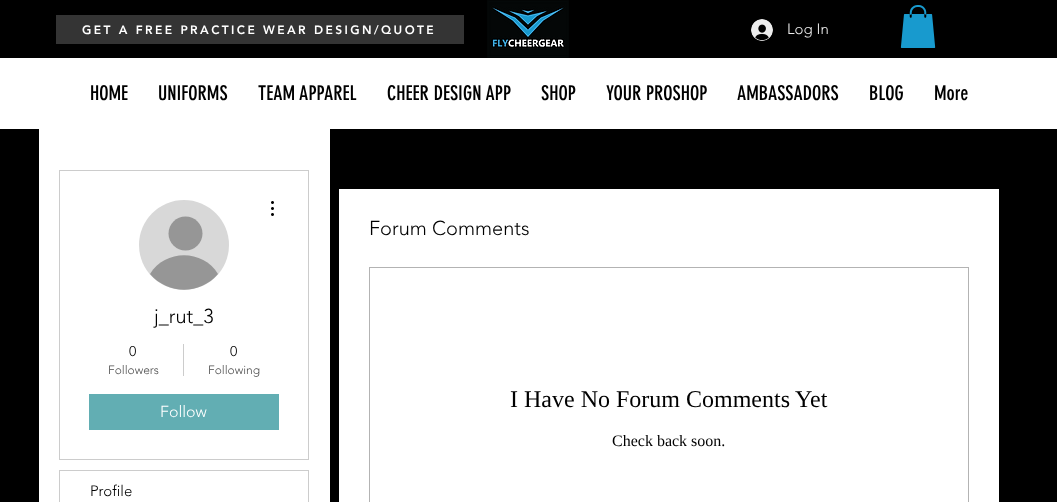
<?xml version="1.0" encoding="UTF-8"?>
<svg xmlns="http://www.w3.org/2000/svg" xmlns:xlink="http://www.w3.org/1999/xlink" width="1057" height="502">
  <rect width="100%" height="100%" fill="#000000" />
  <rect x="56" y="15" width="408" height="29" fill="#343434" />
  <image x="487" y="0" width="82" height="58" xlink:href="image1.png" />
  <image x="751" y="19" width="22" height="22" xlink:href="image2.png" />
  <image x="900" y="5" width="36" height="43" xlink:href="image3.png" />
  <rect y="58" width="1057" height="71" fill="#ffffff" />
  <rect x="39" y="129" width="291" height="373" fill="#ffffff" />
  <rect x="59.5" y="170.5" width="249" height="289" fill="none" stroke="#cccccc" />
  <circle cx="184" cy="245" r="45" fill="#d8d8d8" />
  <circle cx="185.5" cy="233.5" r="17" fill="#969696" />
  <path d="M 218 274 c -18 21 -50 21 -68 0 c 15 -25 53 -25 68 0 z" fill="#969696" />
  <image x="271" y="201" width="3" height="15" xlink:href="image4.png" />
  <rect x="183" y="344" width="1" height="32" fill="#cccccc" />
  <rect x="89" y="394" width="190" height="36" fill="#62aeb3" />
  <rect x="59.5" y="470.5" width="249" height="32" fill="none" stroke="#cccccc" />
  <rect x="339" y="189" width="660" height="313" fill="#ffffff" />
  <rect x="369.5" y="267.5" width="599" height="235" fill="none" stroke="#b3b3b3" />
  <text x="82" y="34" style="font-family: 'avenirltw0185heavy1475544'; font-size: 12px; font-weight: 900; letter-spacing: 2.4px; fill: #ffffff">GET A FREE PRACTICE WEAR DESIGN/QUOTE</text>
  <text x="787" y="34" style="font-family: 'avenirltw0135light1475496'; font-size: 15px; font-weight: 300; fill: #ededed">Log In</text>
  <text x="90" y="100" style="font-family: 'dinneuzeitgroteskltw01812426'; font-size: 20px; fill: #000000">HOME</text>
  <text x="158" y="100" style="font-family: 'dinneuzeitgroteskltw01812426'; font-size: 20px; fill: #000000">UNIFORMS</text>
  <text x="258" y="100" style="font-family: 'dinneuzeitgroteskltw01812426'; font-size: 20px; fill: #000000">TEAM APPAREL</text>
  <text x="387" y="100" style="font-family: 'dinneuzeitgroteskltw01812426'; font-size: 20px; fill: #000000">CHEER DESIGN APP</text>
  <text x="541" y="100" style="font-family: 'dinneuzeitgroteskltw01812426'; font-size: 20px; fill: #000000">SHOP</text>
  <text x="606" y="100" style="font-family: 'dinneuzeitgroteskltw01812426'; font-size: 20px; fill: #000000">YOUR PROSHOP</text>
  <text x="737" y="100" style="font-family: 'dinneuzeitgroteskltw01812426'; font-size: 20px; fill: #000000">AMBASSADORS</text>
  <text x="869" y="100" style="font-family: 'dinneuzeitgroteskltw01812426'; font-size: 20px; fill: #000000">BLOG</text>
  <text x="934" y="100" style="font-family: 'dinneuzeitgroteskltw01812426'; font-size: 20px; fill: #000000">More</text>
  <text x="154" y="323" style="font-family: 'avenirltw0135light1475496'; font-size: 20px; font-weight: 300; fill: #000000">j_rut_3</text>
  <text x="129" y="356" style="font-family: 'avenirltw0135light1475496'; font-size: 14px; font-weight: 300; fill: #000000">0</text>
  <text x="108" y="374" style="font-family: 'avenirltw0135light1475496'; font-size: 12px; font-weight: 300; fill: #4d4d4d">Followers</text>
  <text x="230" y="356" style="font-family: 'avenirltw0135light1475496'; font-size: 14px; font-weight: 300; fill: #000000">0</text>
  <text x="208" y="374" style="font-family: 'avenirltw0135light1475496'; font-size: 12px; font-weight: 300; fill: #4d4d4d">Following</text>
  <text x="160" y="417" style="font-family: 'avenirltw0135light1475496'; font-size: 16px; font-weight: 300; fill: #ffffff">Follow</text>
  <text x="90" y="496" style="font-family: 'avenirltw0135light1475496'; font-size: 15px; font-weight: 300; fill: #000000">Profile</text>
  <text x="369" y="235" style="font-family: 'avenirltw0135light1475496'; font-size: 20px; font-weight: 300; fill: #000000">Forum Comments</text>
  <text x="510" y="407" style="font-family: Liberation Serif; font-size: 24px; fill: #000000">I Have No Forum Comments Yet</text>
  <text x="612" y="446" style="font-family: Liberation Serif; font-size: 16px; fill: #000000">Check back soon.</text>
</svg>
